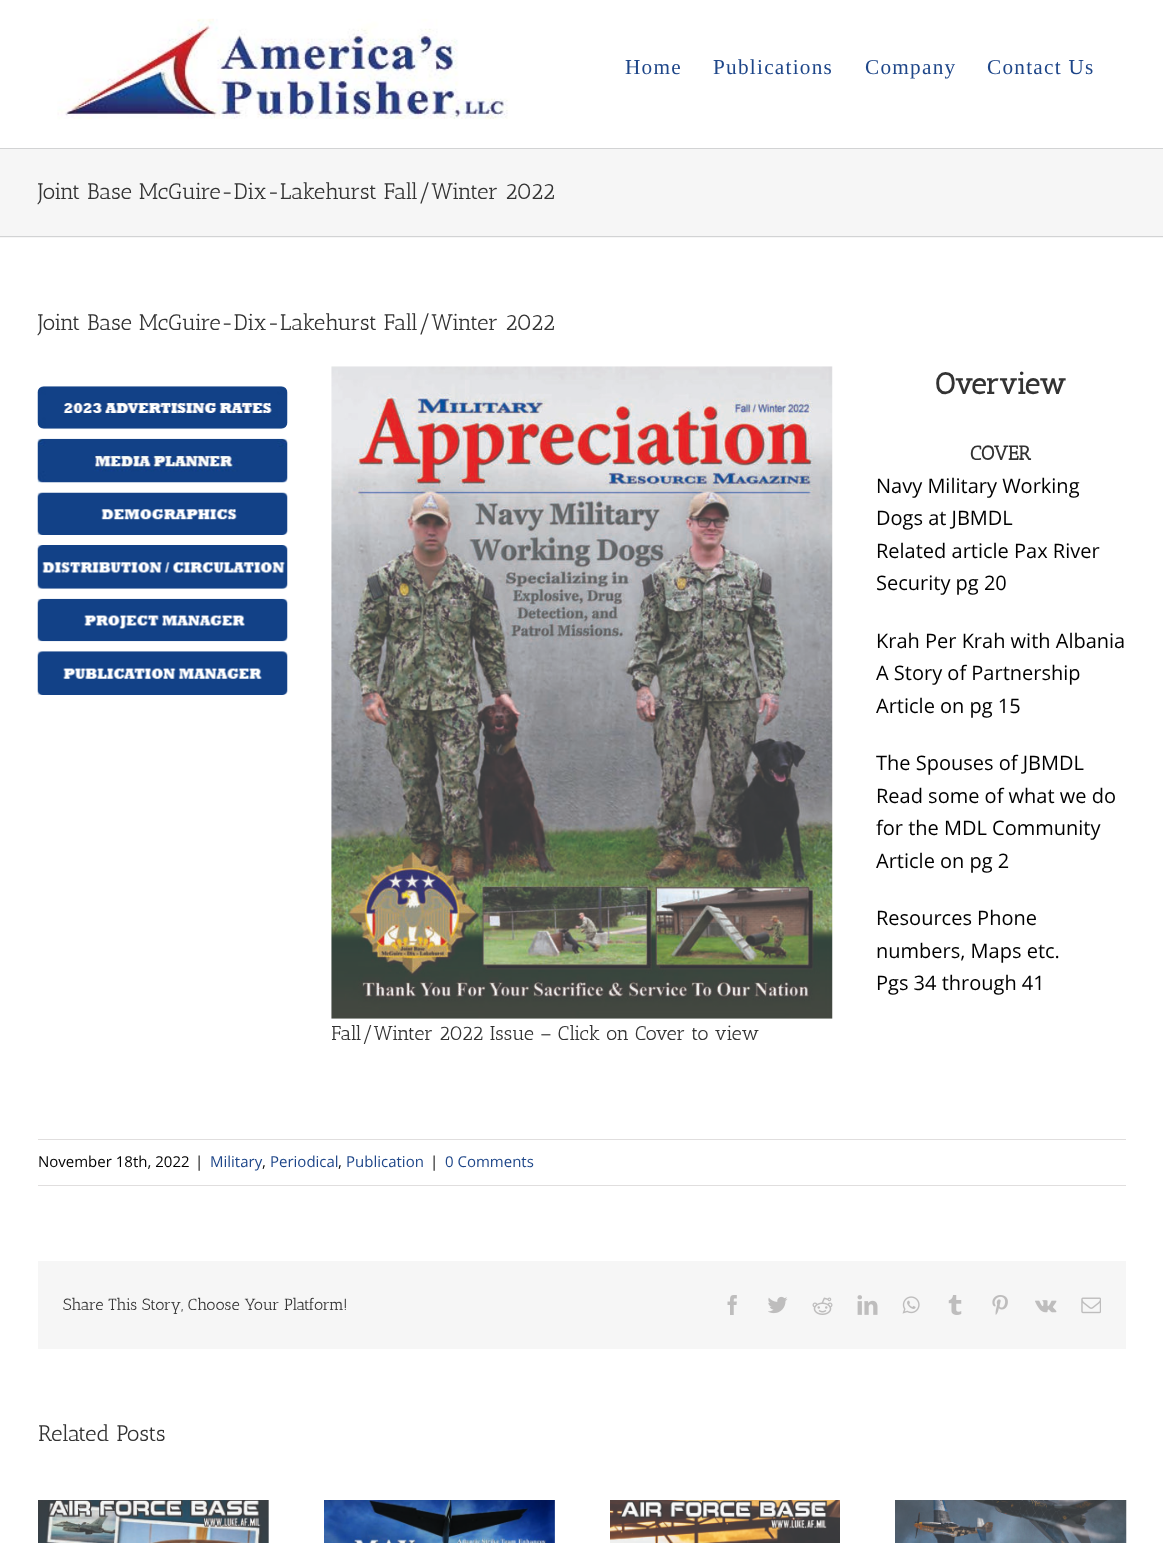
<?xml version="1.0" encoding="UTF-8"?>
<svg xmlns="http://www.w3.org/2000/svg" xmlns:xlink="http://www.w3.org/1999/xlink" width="1163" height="1543">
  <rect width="100%" height="100%" fill="#f6f6f6" />
  <rect width="1163" height="148" fill="#ffffff" />
  <image x="57" y="18" width="453" height="102" xlink:href="image1.png" />
  <rect y="148" width="1163" height="1" fill="#d2d3d4" />
  <rect y="236" width="1163" height="1" fill="#d2d3d4" />
  <rect y="238" width="1163" height="1305" fill="#ffffff" />
  <image x="37" y="386" width="251" height="43" xlink:href="image2.png" />
  <image x="37" y="438" width="251" height="45" xlink:href="image3.png" />
  <image x="37" y="492" width="251" height="43" xlink:href="image4.png" />
  <image x="37" y="545" width="251" height="44" xlink:href="image5.png" />
  <image x="37" y="598" width="251" height="44" xlink:href="image6.png" />
  <image x="37" y="651" width="251" height="44" xlink:href="image7.png" />
  <image x="331" y="366" width="502" height="653" xlink:href="image8.png" />
  <rect x="38" y="1139" width="1088" height="1" fill="#e0dede" />
  <rect x="38" y="1185" width="1088" height="1" fill="#e0dede" />
  <rect x="38" y="1261" width="1088" height="88" fill="#f6f6f6" />
  <image x="727" y="1295" width="10" height="20" xlink:href="image9.png" />
  <image x="768" y="1296" width="20" height="18" xlink:href="image10.png" />
  <image x="812" y="1297" width="21" height="18" xlink:href="image11.png" />
  <image x="857" y="1295" width="21" height="20" xlink:href="image12.png" />
  <image x="902" y="1296" width="18" height="18" xlink:href="image13.png" />
  <image x="948" y="1295" width="14" height="20" xlink:href="image14.png" />
  <image x="992" y="1295" width="16" height="20" xlink:href="image15.png" />
  <image x="1035" y="1300" width="22" height="13" xlink:href="image16.png" />
  <image x="1081" y="1297" width="20" height="17" xlink:href="image17.png" />
  <image x="38" y="1500" width="231" height="43" xlink:href="image18.png" />
  <image x="324" y="1500" width="231" height="43" xlink:href="image19.png" />
  <image x="610" y="1500" width="230" height="43" xlink:href="image20.png" />
  <image x="895" y="1500" width="232" height="43" xlink:href="image21.png" />
  <text x="625" y="74" style="font-family: Liberation Serif; font-size: 21.25px; letter-spacing: 1.25px; fill: #1e4689">Home</text>
  <text x="713" y="74" style="font-family: Liberation Serif; font-size: 21.25px; letter-spacing: 1.25px; fill: #1e4689">Publications</text>
  <text x="865" y="74" style="font-family: Liberation Serif; font-size: 21.25px; letter-spacing: 1.25px; fill: #1e4689">Company</text>
  <text x="987" y="74" style="font-family: Liberation Serif; font-size: 21.25px; letter-spacing: 1.25px; fill: #1e4689">Contact Us</text>
  <text x="38" y="199" style="font-family: Antic Slab; font-size: 22.5px; fill: #333333">Joint Base McGuire-Dix-Lakehurst Fall/Winter 2022</text>
  <text x="38" y="330" style="font-family: Antic Slab; font-size: 22.5px; fill: #333333">Joint Base McGuire-Dix-Lakehurst Fall/Winter 2022</text>
  <text x="935" y="394" style="font-family: Antic Slab; font-size: 30px; font-weight: bold; fill: #333333">Overview</text>
  <text x="970" y="460" style="font-family: Antic Slab; font-size: 20px; font-weight: bold; fill: #333333">COVER</text>
  <text x="876" y="493" style="font-family: Open Sans; font-size: 20px; fill: #000000">Navy Military Working</text>
  <text x="876" y="525" style="font-family: Open Sans; font-size: 20px; fill: #000000">Dogs at JBMDL</text>
  <text x="876" y="558" style="font-family: Open Sans; font-size: 20px; fill: #000000">Related article Pax River</text>
  <text x="876" y="590" style="font-family: Open Sans; font-size: 20px; fill: #000000">Security pg 20</text>
  <text x="876" y="648" style="font-family: Open Sans; font-size: 20px; fill: #000000">Krah Per Krah with Albania</text>
  <text x="876" y="680" style="font-family: Open Sans; font-size: 20px; fill: #000000">A Story of Partnership</text>
  <text x="876" y="713" style="font-family: Open Sans; font-size: 20px; fill: #000000">Article on pg 15</text>
  <text x="876" y="770" style="font-family: Open Sans; font-size: 20px; fill: #000000">The Spouses of JBMDL</text>
  <text x="876" y="803" style="font-family: Open Sans; font-size: 20px; fill: #000000">Read some of what we do</text>
  <text x="876" y="835" style="font-family: Open Sans; font-size: 20px; fill: #000000">for the MDL Community</text>
  <text x="876" y="868" style="font-family: Open Sans; font-size: 20px; fill: #000000">Article on pg 2</text>
  <text x="876" y="925" style="font-family: Open Sans; font-size: 20px; fill: #000000">Resources Phone</text>
  <text x="876" y="958" style="font-family: Open Sans; font-size: 20px; fill: #000000">numbers, Maps etc.</text>
  <text x="876" y="990" style="font-family: Open Sans; font-size: 20px; fill: #000000">Pgs 34 through 41</text>
  <text x="331" y="1040" style="font-family: Antic Slab; font-size: 20px; fill: #333333">Fall/Winter 2022 Issue – Click on Cover to view</text>
  <text x="38" y="1167" style="font-family: Open Sans; font-size: 15px; fill: #000000">November 18th, 2022</text>
  <text x="195" y="1167" style="font-family: Open Sans; font-size: 15px; fill: #000000">|</text>
  <text x="210" y="1167" style="font-family: Open Sans; font-size: 15px; fill: #1e4689">Military</text>
  <text x="262" y="1167" style="font-family: Open Sans; font-size: 15px; fill: #000000">,</text>
  <text x="270" y="1167" style="font-family: Open Sans; font-size: 15px; fill: #1e4689">Periodical</text>
  <text x="338" y="1167" style="font-family: Open Sans; font-size: 15px; fill: #000000">,</text>
  <text x="346" y="1167" style="font-family: Open Sans; font-size: 15px; fill: #1e4689">Publication</text>
  <text x="430" y="1167" style="font-family: Open Sans; font-size: 15px; fill: #000000">|</text>
  <text x="445" y="1167" style="font-family: Open Sans; font-size: 15px; fill: #1e4689">0 Comments</text>
  <text x="63" y="1310" style="font-family: Antic Slab; font-size: 16.25px; fill: #333333">Share This Story, Choose Your Platform!</text>
  <text x="38" y="1441" style="font-family: Antic Slab; font-size: 22.5px; fill: #333333">Related Posts</text>
</svg>
